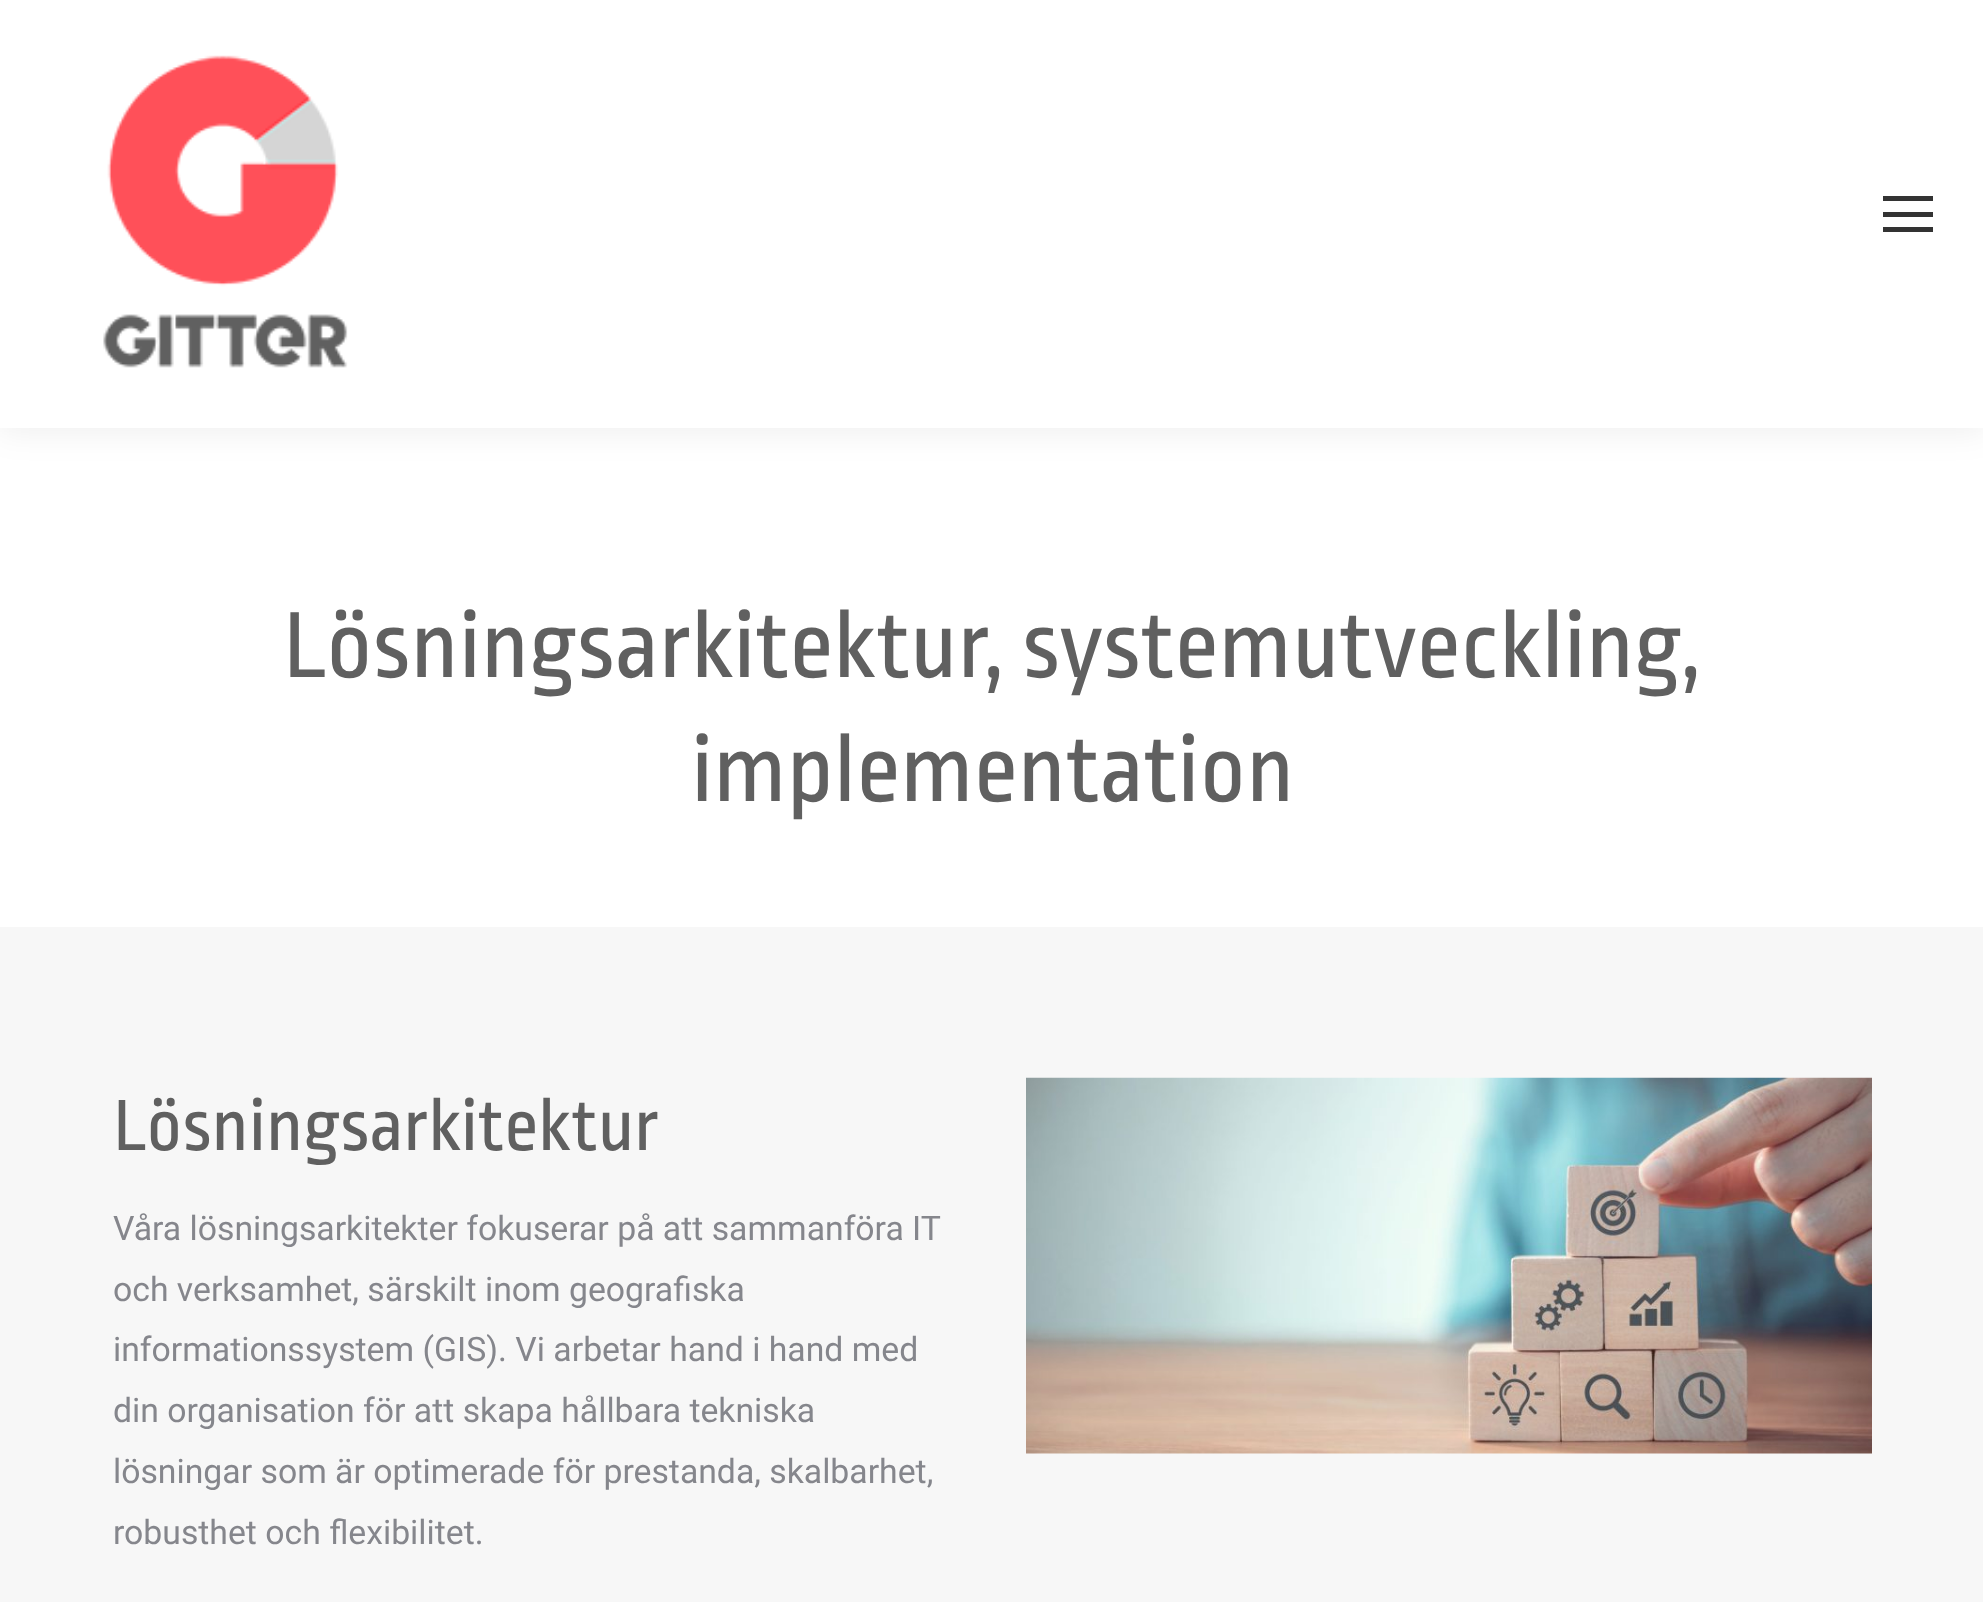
<?xml version="1.0" encoding="UTF-8"?>
<svg xmlns="http://www.w3.org/2000/svg" xmlns:xlink="http://www.w3.org/1999/xlink" width="1983" height="1602">
  <rect width="100%" height="100%" fill="#ffffff" />
  <rect x="-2" y="-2" width="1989" height="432" fill="#000000" fill-opacity="0.07" filter="blur(17px)" />
  <rect width="1983" height="428" fill="#ffffff" />
  <image x="103" y="55" width="245" height="313" xlink:href="image1.png" />
  <rect x="1883" y="196" width="50" height="5" fill="#333333" />
  <rect x="1883" y="212" width="50" height="5" fill="#333333" />
  <rect x="1883" y="227" width="50" height="5" fill="#333333" />
  <rect y="927" width="1983" height="675" fill="#f7f7f7" />
  <image x="1026" y="1077" width="846" height="377" xlink:href="image2.png" />
  <text x="283" y="677" style="font-family: Ropa Sans; font-size: 99px; fill: #606060">Lösningsarkitektur, systemutveckling,</text>
  <text x="691" y="801" style="font-family: Ropa Sans; font-size: 99px; fill: #606060">implementation</text>
  <text x="113" y="1150" style="font-family: Ropa Sans; font-size: 76.5px; fill: #606060">Lösningsarkitektur</text>
  <text x="113" y="1240" style="font-family: Roboto; font-size: 33.75px; fill: #85868c">Våra lösningsarkitekter fokuserar på att sammanföra IT</text>
  <text x="113" y="1301" style="font-family: Roboto; font-size: 33.75px; fill: #85868c">och verksamhet, särskilt inom geografiska</text>
  <text x="113" y="1361" style="font-family: Roboto; font-size: 33.75px; fill: #85868c">informationssystem (GIS). Vi arbetar hand i hand med</text>
  <text x="113" y="1422" style="font-family: Roboto; font-size: 33.75px; fill: #85868c">din organisation för att skapa hållbara tekniska</text>
  <text x="113" y="1483" style="font-family: Roboto; font-size: 33.75px; fill: #85868c">lösningar som är optimerade för prestanda, skalbarhet,</text>
  <text x="113" y="1544" style="font-family: Roboto; font-size: 33.75px; fill: #85868c">robusthet och flexibilitet.</text>
</svg>
